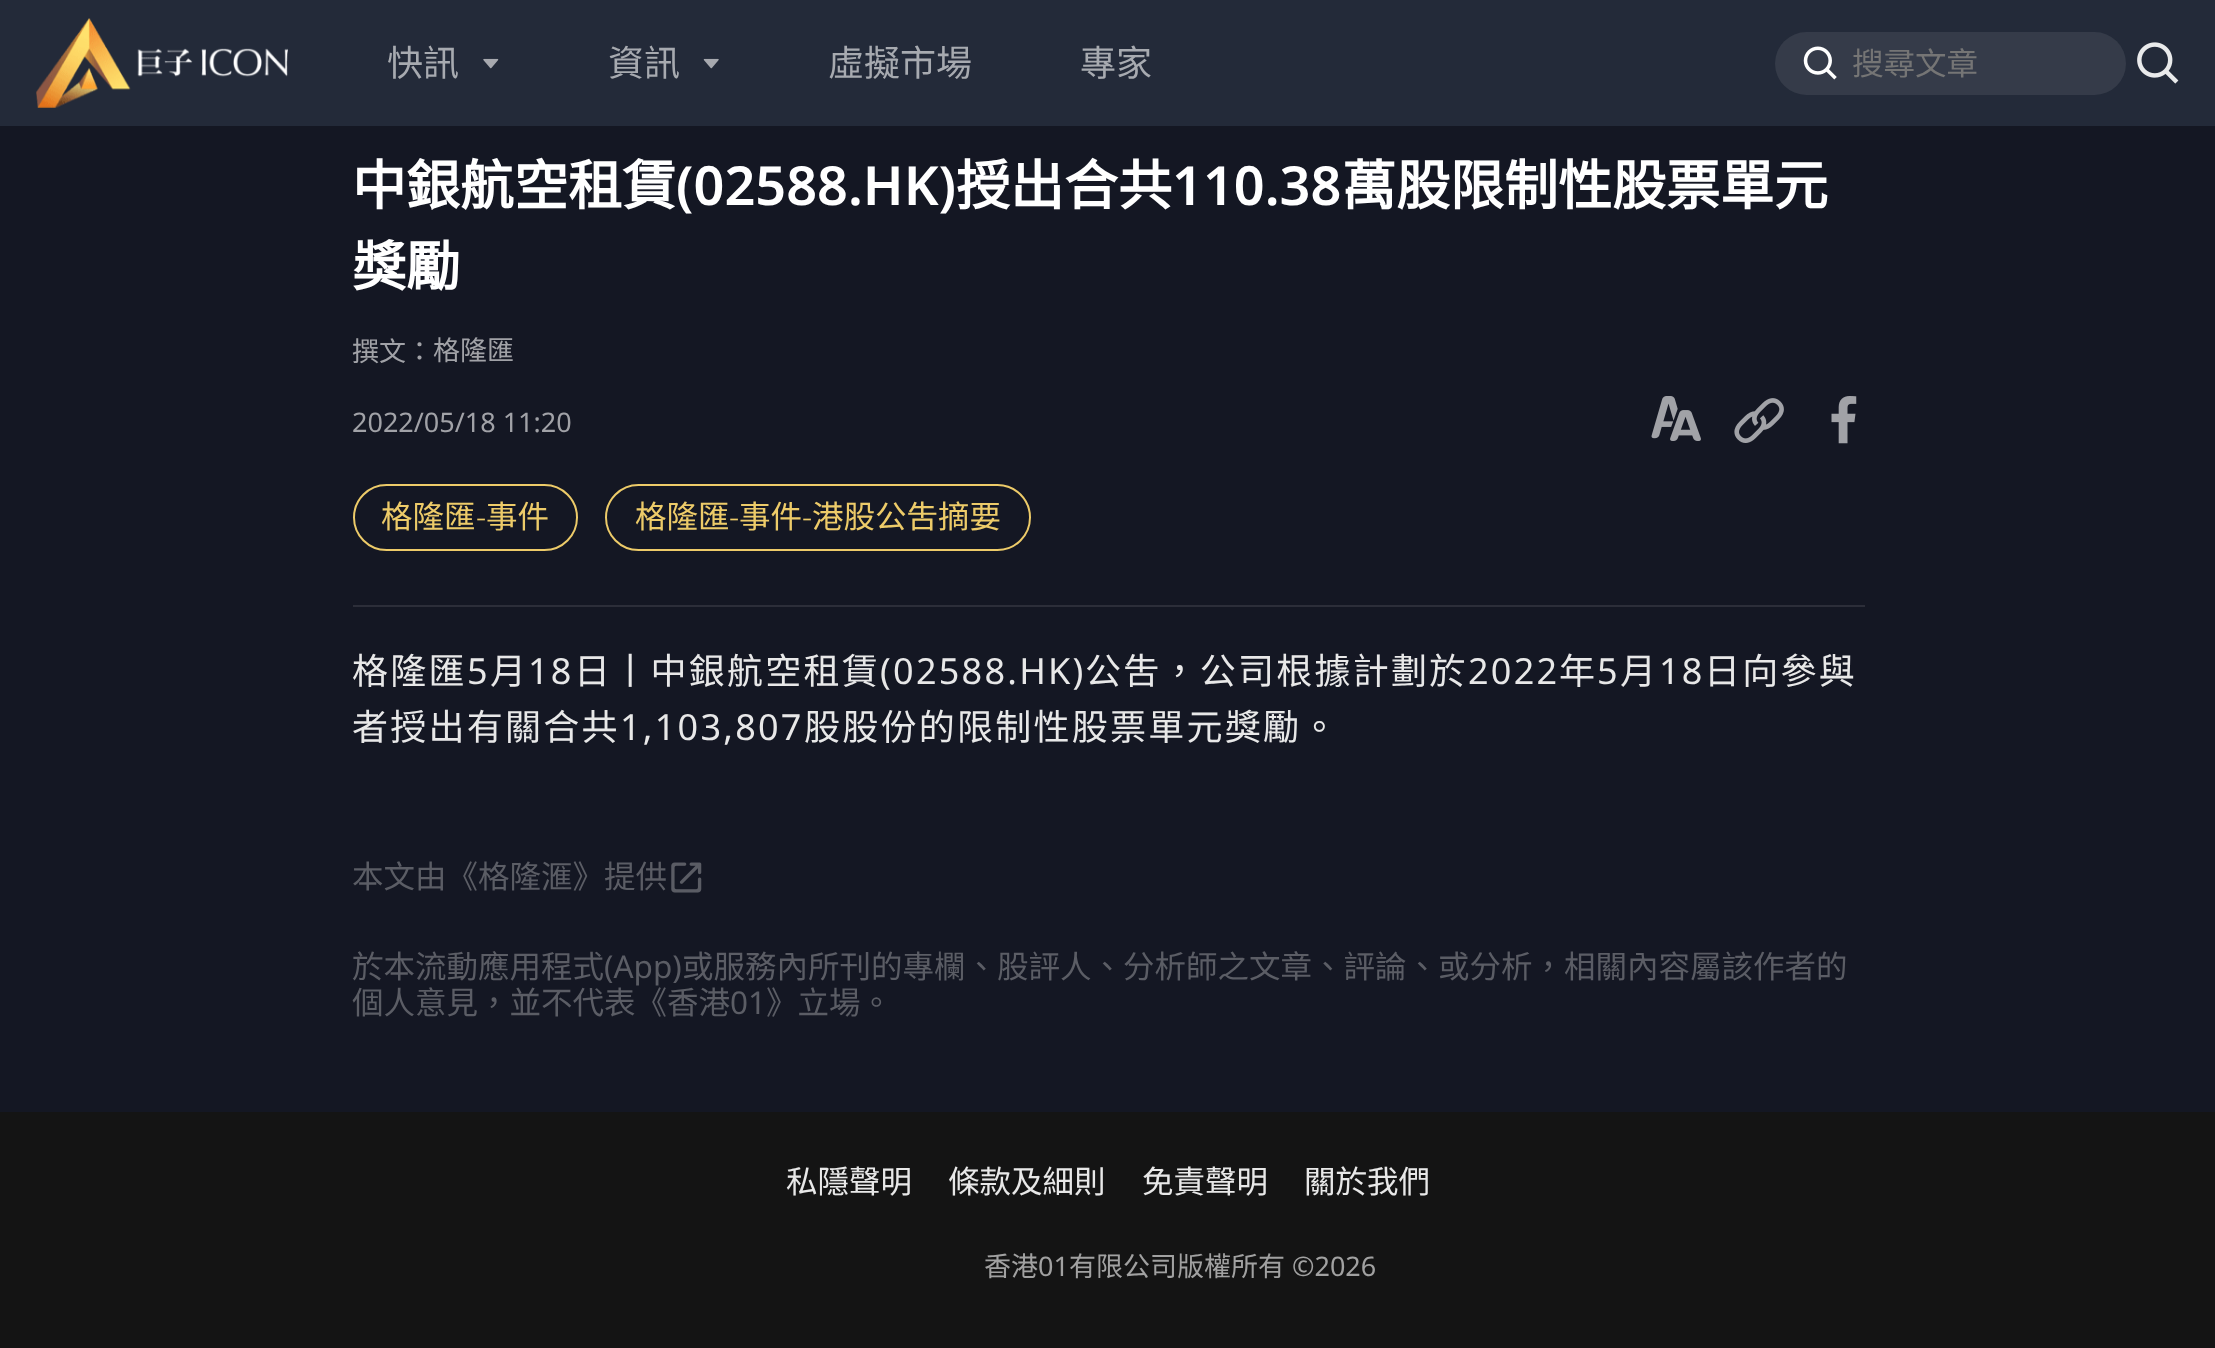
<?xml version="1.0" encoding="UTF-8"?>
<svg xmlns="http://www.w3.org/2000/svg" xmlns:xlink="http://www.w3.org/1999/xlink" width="2215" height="1348">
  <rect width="100%" height="100%" fill="#141723" />
  <rect width="2215" height="126" fill="#232a39" />
  <image x="36" y="18" width="252" height="90" xlink:href="image1.png" />
  <image x="483" y="58" width="16" height="11" xlink:href="image2.png" />
  <image x="703" y="58" width="16" height="11" xlink:href="image3.png" />
  <rect x="1775" y="32" width="351" height="63" rx="31.5" fill="#353b49" />
  <image x="1803" y="46" width="34" height="34" xlink:href="image4.png" />
  <image x="2137" y="42" width="42" height="42" xlink:href="image5.png" />
  <rect x="353" y="605" width="1512" height="2" fill="#2c2e39" />
  <image x="1651" y="396" width="50" height="45" xlink:href="image6.png" />
  <image x="1734" y="398" width="50" height="45" xlink:href="image7.png" />
  <image x="1831" y="396" width="26" height="48" xlink:href="image8.png" />
  <rect x="354" y="485" width="223" height="65" rx="32.5" fill="none" stroke="#edcb69" stroke-width="2" />
  <rect x="606" y="485" width="424" height="65" rx="32.5" fill="none" stroke="#edcb69" stroke-width="2" />
  <image x="671" y="862" width="31" height="31" xlink:href="image9.png" />
  <rect y="1112" width="2215" height="236" fill="#141414" />
  <text x="387" y="76" style="font-family: Noto Sans CJK HK; font-size: 36px; fill: #a7aab0">快訊</text>
  <text x="608" y="76" style="font-family: Noto Sans CJK HK; font-size: 36px; fill: #a7aab0">資訊</text>
  <text x="828" y="76" style="font-family: Noto Sans CJK HK; font-size: 36px; fill: #a7aab0">虛擬市場</text>
  <text x="1080" y="76" style="font-family: Noto Sans CJK HK; font-size: 36px; fill: #a7aab0">專家</text>
  <text x="1852" y="75" style="font-family: Noto Sans CJK HK; font-size: 31.5px; fill: #757575">搜尋文章</text>
  <text x="352" y="205" style="font-family: Noto Sans CJK HK; font-size: 54px; font-weight: bold; fill: #ffffff">中銀航空租賃</text>
  <text x="676" y="205" style="font-family: Noto Sans; font-size: 54px; font-weight: 600; fill: #ffffff">(02588.HK)</text>
  <text x="956" y="205" style="font-family: Noto Sans CJK HK; font-size: 54px; font-weight: bold; fill: #ffffff">授出合共</text>
  <text x="1172" y="205" style="font-family: Noto Sans; font-size: 54px; font-weight: 600; fill: #ffffff">110.38</text>
  <text x="1342" y="205" style="font-family: Noto Sans CJK HK; font-size: 54px; font-weight: bold; fill: #ffffff">萬股限制性股票單元</text>
  <text x="352" y="286" style="font-family: Noto Sans CJK HK; font-size: 54px; font-weight: bold; fill: #ffffff">獎勵</text>
  <text x="352" y="361" style="font-family: Noto Sans CJK HK; font-size: 27px; fill: #a1a2a7">撰文：</text>
  <text x="433" y="360" style="font-family: Noto Sans CJK HK; font-size: 27px; fill: #a1a2a7">格隆匯</text>
  <text x="352" y="432" style="font-family: Noto Sans; font-size: 27px; fill: #a1a2a7">2022/05/18 11:20</text>
  <text x="381" y="528" style="font-family: Noto Sans CJK HK; font-size: 31.5px; fill: #edcb69">格隆匯</text>
  <text x="476" y="528" style="font-family: Noto Sans; font-size: 31.5px; font-weight: 300; fill: #edcb69">-</text>
  <text x="486" y="528" style="font-family: Noto Sans CJK HK; font-size: 31.5px; fill: #edcb69">事件</text>
  <text x="635" y="528" style="font-family: Noto Sans CJK HK; font-size: 31.5px; fill: #edcb69">格隆匯</text>
  <text x="729" y="528" style="font-family: Noto Sans; font-size: 31.5px; font-weight: 300; fill: #edcb69">-</text>
  <text x="739" y="528" style="font-family: Noto Sans CJK HK; font-size: 31.5px; fill: #edcb69">事件</text>
  <text x="802" y="528" style="font-family: Noto Sans; font-size: 31.5px; font-weight: 300; fill: #edcb69">-</text>
  <text x="812" y="528" style="font-family: Noto Sans CJK HK; font-size: 31.5px; fill: #edcb69">港股公吿摘要</text>
  <text x="352" y="684" style="font-family: Noto Sans CJK HK; font-size: 36px; letter-spacing: 2.25px; fill: #e8e8e8">格隆匯</text>
  <text x="467" y="684" style="font-family: Noto Sans; font-size: 36px; letter-spacing: 2.25px; fill: #e8e8e8">5</text>
  <text x="490" y="684" style="font-family: Noto Sans CJK HK; font-size: 36px; letter-spacing: 2.25px; fill: #e8e8e8">月</text>
  <text x="528" y="684" style="font-family: Noto Sans; font-size: 36px; letter-spacing: 2.25px; fill: #e8e8e8">18</text>
  <text x="574" y="684" style="font-family: Noto Sans CJK HK; font-size: 36px; letter-spacing: 2.25px; fill: #e8e8e8">日丨中銀航空租賃</text>
  <text x="880" y="684" style="font-family: Noto Sans; font-size: 36px; letter-spacing: 2.25px; fill: #e8e8e8">(02588.HK)</text>
  <text x="1085" y="684" style="font-family: Noto Sans CJK HK; font-size: 36px; letter-spacing: 2.25px; fill: #e8e8e8">公吿，公司根據計劃於</text>
  <text x="1468" y="684" style="font-family: Noto Sans; font-size: 36px; letter-spacing: 2.25px; fill: #e8e8e8">2022</text>
  <text x="1559" y="684" style="font-family: Noto Sans CJK HK; font-size: 36px; letter-spacing: 2.25px; fill: #e8e8e8">年</text>
  <text x="1597" y="684" style="font-family: Noto Sans; font-size: 36px; letter-spacing: 2.25px; fill: #e8e8e8">5</text>
  <text x="1620" y="684" style="font-family: Noto Sans CJK HK; font-size: 36px; letter-spacing: 2.25px; fill: #e8e8e8">月</text>
  <text x="1659" y="684" style="font-family: Noto Sans; font-size: 36px; letter-spacing: 2.25px; fill: #e8e8e8">18</text>
  <text x="1704" y="684" style="font-family: Noto Sans CJK HK; font-size: 36px; letter-spacing: 2.25px; fill: #e8e8e8">日向參與</text>
  <text x="352" y="740" style="font-family: Noto Sans CJK HK; font-size: 36px; letter-spacing: 2.25px; fill: #e8e8e8">者授出有關合共</text>
  <text x="620" y="740" style="font-family: Noto Sans; font-size: 36px; letter-spacing: 2.25px; fill: #e8e8e8">1,103,807</text>
  <text x="804" y="740" style="font-family: Noto Sans CJK HK; font-size: 36px; letter-spacing: 2.25px; fill: #e8e8e8">股股份的限制性股票單元獎勵。</text>
  <text x="352" y="888" style="font-family: Noto Sans CJK HK; font-size: 31.5px; fill: #5b5d65">本文由《格隆滙》提供</text>
  <text x="352" y="978" style="font-family: Noto Sans CJK HK; font-size: 31.5px; fill: #5b5d65">於本流動應用程式</text>
  <text x="604" y="978" style="font-family: Noto Sans; font-size: 31.5px; fill: #5b5d65">(App)</text>
  <text x="682" y="978" style="font-family: Noto Sans CJK HK; font-size: 31.5px; fill: #5b5d65">或服務內所刊的專欄、股評人、分析師之文章、評論、或分析，相關內容屬該作者的</text>
  <text x="352" y="1014" style="font-family: Noto Sans CJK HK; font-size: 31.5px; fill: #5b5d65">個人意見，並不代表《香港</text>
  <text x="730" y="1014" style="font-family: Noto Sans; font-size: 31.5px; fill: #5b5d65">01</text>
  <text x="766" y="1014" style="font-family: Noto Sans CJK HK; font-size: 31.5px; fill: #5b5d65">》立場。</text>
  <text x="786" y="1193" style="font-family: Noto Sans CJK HK; font-size: 31.5px; fill: #e8e8e8">私隱聲明</text>
  <text x="948" y="1193" style="font-family: Noto Sans CJK HK; font-size: 31.5px; fill: #e8e8e8">條款及細則</text>
  <text x="1142" y="1193" style="font-family: Noto Sans CJK HK; font-size: 31.5px; fill: #e8e8e8">免責聲明</text>
  <text x="1304" y="1193" style="font-family: Noto Sans CJK HK; font-size: 31.5px; fill: #e8e8e8">關於我們</text>
  <text x="984" y="1276" style="font-family: Noto Sans CJK HK; font-size: 27px; fill: #a1a1a1">香港</text>
  <text x="1038" y="1276" style="font-family: Noto Sans; font-size: 27px; fill: #a1a1a1">01</text>
  <text x="1069" y="1276" style="font-family: Noto Sans CJK HK; font-size: 27px; fill: #a1a1a1">有限公司版權所有</text>
  <text x="1292" y="1276" style="font-family: Noto Sans; font-size: 27px; fill: #a1a1a1">©2026</text>
</svg>
